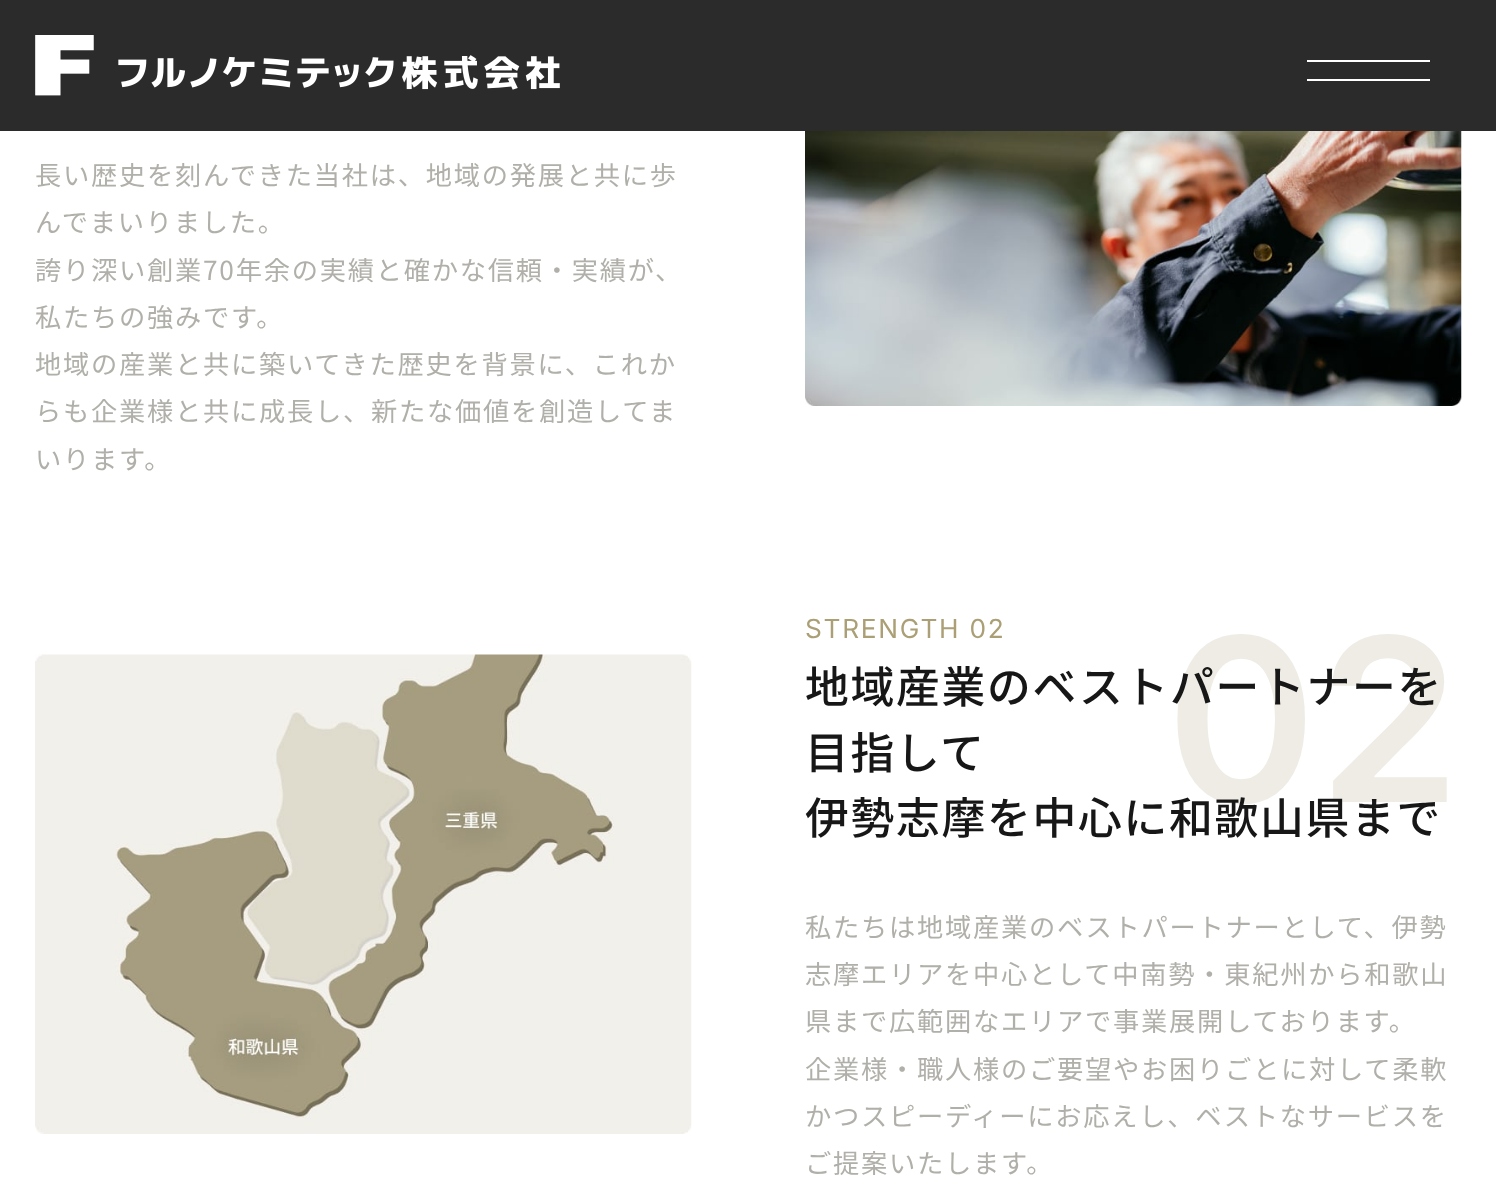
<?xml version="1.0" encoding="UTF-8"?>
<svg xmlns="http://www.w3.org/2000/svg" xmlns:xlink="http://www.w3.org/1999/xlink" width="1496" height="1183">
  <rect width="100%" height="100%" fill="#ffffff" />
  <rect width="1496" height="131" fill="#2b2b2b" />
  <image x="35" y="35" width="525" height="61" xlink:href="image1.png" />
  <rect x="1307" y="60" width="123" height="2" fill="#ffffff" />
  <rect x="1307" y="79" width="123" height="2" fill="#ffffff" />
  <image x="805" y="131" width="657" height="275" xlink:href="image2.png" />
  <image x="35" y="654" width="657" height="480" xlink:href="image3.png" />
  <text x="35" y="185" style="font-family: Noto Sans JP; font-size: 26.25px; letter-spacing: 1.75px; fill: #b0afa9">長い歴史を刻んできた当社は、地域の発展と共に歩</text>
  <text x="35" y="232" style="font-family: Noto Sans JP; font-size: 26.25px; letter-spacing: 1.75px; fill: #b0afa9">んでまいりました。</text>
  <text x="35" y="280" style="font-family: Noto Sans JP; font-size: 26.25px; letter-spacing: 1.75px; fill: #b0afa9">誇り深い創業70年余の実績と確かな信頼・実績が、</text>
  <text x="35" y="327" style="font-family: Noto Sans JP; font-size: 26.25px; letter-spacing: 1.75px; fill: #b0afa9">私たちの強みです。</text>
  <text x="35" y="374" style="font-family: Noto Sans JP; font-size: 26.25px; letter-spacing: 1.75px; fill: #b0afa9">地域の産業と共に築いてきた歴史を背景に、これか</text>
  <text x="35" y="421" style="font-family: Noto Sans JP; font-size: 26.25px; letter-spacing: 1.75px; fill: #b0afa9">らも企業様と共に成長し、新たな価値を創造してま</text>
  <text x="35" y="469" style="font-family: Noto Sans JP; font-size: 26.25px; letter-spacing: 1.75px; fill: #b0afa9">いります。</text>
  <text x="805" y="638" style="font-family: Inter; font-size: 26.25px; letter-spacing: 1.75px; fill: #ab9f76">STRENGTH 02</text>
  <text x="1166" y="802" style="font-family: Inter; font-size: 228px; font-weight: 600; letter-spacing: 1.75px; fill: #eeece4">02</text>
  <text x="805" y="703" style="font-family: Noto Sans JP; font-size: 43.75px; font-weight: 500; letter-spacing: 1.75px; fill: #171717">地域産業のベストパートナーを</text>
  <text x="805" y="769" style="font-family: Noto Sans JP; font-size: 43.75px; font-weight: 500; letter-spacing: 1.75px; fill: #171717">目指して</text>
  <text x="805" y="834" style="font-family: Noto Sans JP; font-size: 43.75px; font-weight: 500; letter-spacing: 1.75px; fill: #171717">伊勢志摩を中心に和歌山県まで</text>
  <text x="805" y="937" style="font-family: Noto Sans JP; font-size: 26.25px; letter-spacing: 1.75px; fill: #b0afa9">私たちは地域産業のベストパートナーとして、伊勢</text>
  <text x="805" y="984" style="font-family: Noto Sans JP; font-size: 26.25px; letter-spacing: 1.75px; fill: #b0afa9">志摩エリアを中心として中南勢・東紀州から和歌山</text>
  <text x="805" y="1031" style="font-family: Noto Sans JP; font-size: 26.25px; letter-spacing: 1.75px; fill: #b0afa9">県まで広範囲なエリアで事業展開しております。</text>
  <text x="805" y="1079" style="font-family: Noto Sans JP; font-size: 26.25px; letter-spacing: 1.75px; fill: #b0afa9">企業様・職人様のご要望やお困りごとに対して柔軟</text>
  <text x="805" y="1126" style="font-family: Noto Sans JP; font-size: 26.25px; letter-spacing: 1.75px; fill: #b0afa9">かつスピーディーにお応えし、ベストなサービスを</text>
  <text x="805" y="1173" style="font-family: Noto Sans JP; font-size: 26.25px; letter-spacing: 1.75px; fill: #b0afa9">ご提案いたします。</text>
</svg>
